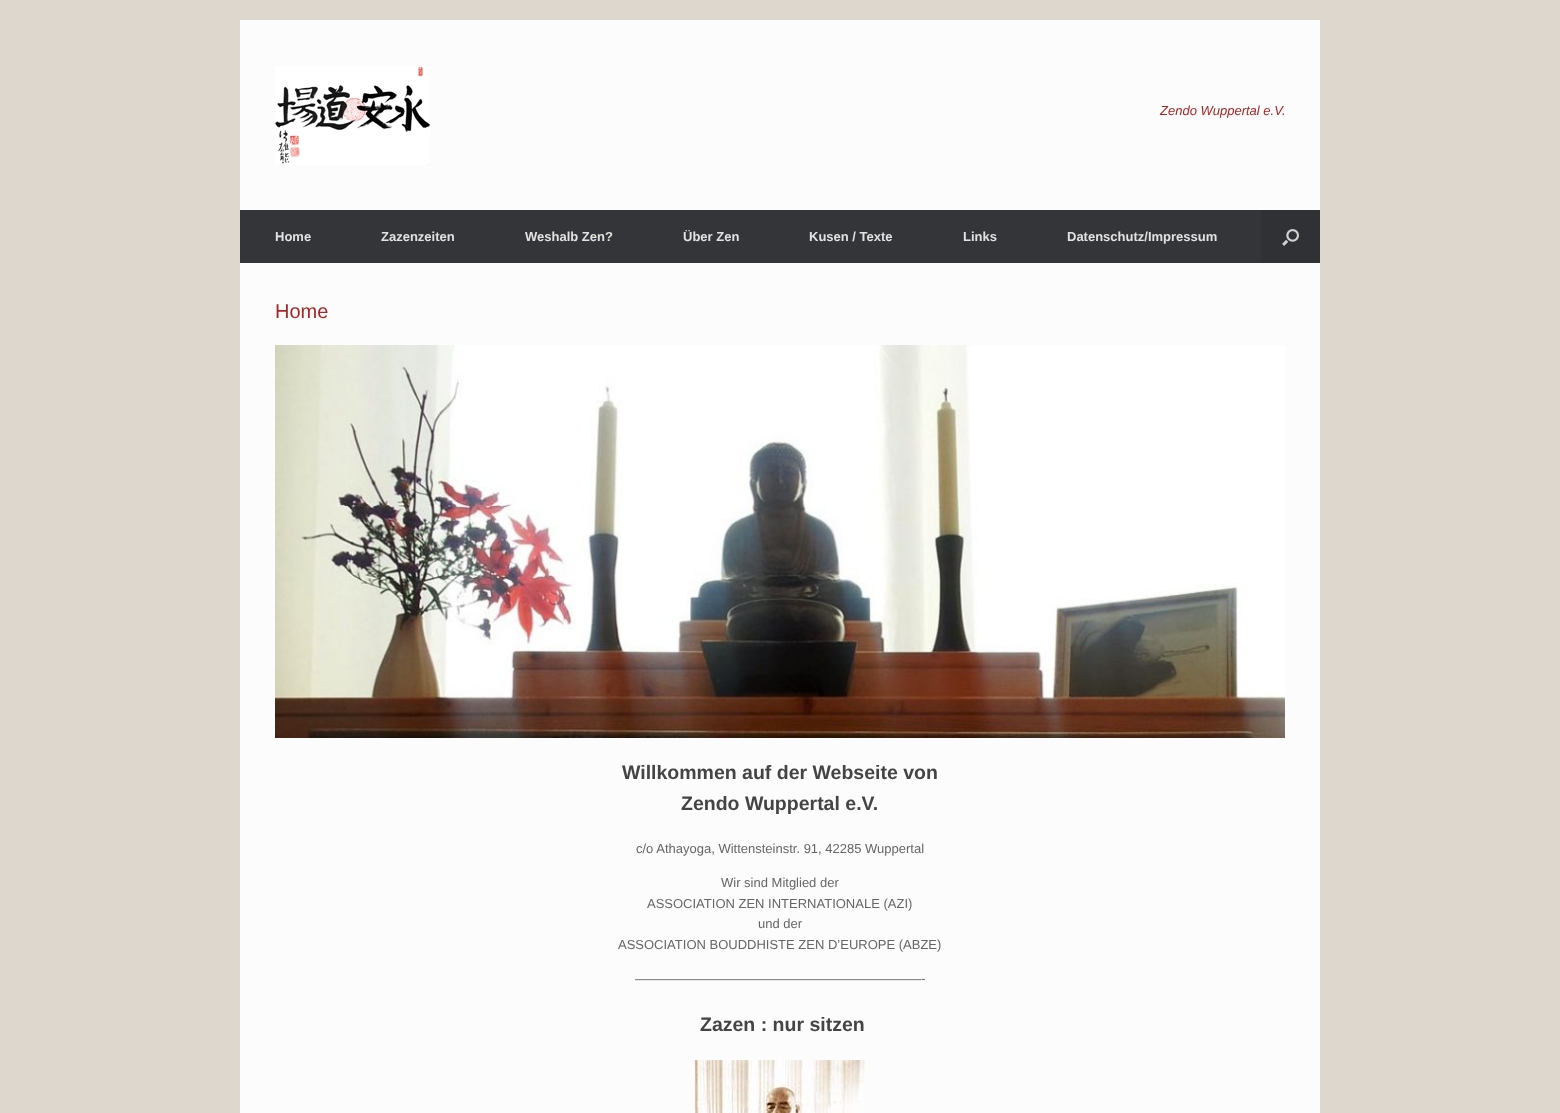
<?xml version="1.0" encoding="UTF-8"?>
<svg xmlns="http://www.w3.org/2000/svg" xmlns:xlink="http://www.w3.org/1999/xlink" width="1560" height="1113">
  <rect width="100%" height="100%" fill="#ddd7ce" />
  <rect x="240" y="20" width="1080" height="190" fill="#fcfcfc" />
  <image x="275" y="66" width="155" height="99" xlink:href="image1.png" />
  <rect x="240" y="210" width="1021" height="53" fill="#343538" />
  <rect x="1261" y="210" width="59" height="53" fill="#303134" />
  <image x="1282" y="229" width="17" height="17" xlink:href="image2.png" />
  <rect x="240" y="263" width="1080" height="850" fill="#fcfcfc" />
  <image x="275" y="345" width="1010" height="393" xlink:href="image3.png" />
  <image x="695" y="1060" width="170" height="53" xlink:href="image4.png" />
  <text x="1160" y="115" style="font-family: Liberation Sans; font-size: 13px; font-style: italic; fill: #aa2626">Zendo Wuppertal e.V.</text>
  <text x="275" y="241" style="font-family: Liberation Sans; font-size: 13px; font-weight: bold; fill: #e2e2e2">Home</text>
  <text x="381" y="241" style="font-family: Liberation Sans; font-size: 13px; font-weight: bold; fill: #e2e2e2">Zazenzeiten</text>
  <text x="525" y="241" style="font-family: Liberation Sans; font-size: 13px; font-weight: bold; fill: #e2e2e2">Weshalb Zen?</text>
  <text x="683" y="241" style="font-family: Liberation Sans; font-size: 13px; font-weight: bold; fill: #e2e2e2">Über Zen</text>
  <text x="809" y="241" style="font-family: Liberation Sans; font-size: 13px; font-weight: bold; fill: #e2e2e2">Kusen / Texte</text>
  <text x="963" y="241" style="font-family: Liberation Sans; font-size: 13px; font-weight: bold; fill: #e2e2e2">Links</text>
  <text x="1067" y="241" style="font-family: Liberation Sans; font-size: 13px; font-weight: bold; fill: #e2e2e2">Datenschutz/Impressum</text>
  <text x="275" y="318" style="font-family: Liberation Sans; font-size: 20px; fill: #aa2626">Home</text>
  <text x="622" y="779" style="font-family: Liberation Sans; font-size: 19.5px; font-weight: bold; fill: #444444">Willkommen auf der Webseite von</text>
  <text x="681" y="810" style="font-family: Liberation Sans; font-size: 19.5px; font-weight: bold; fill: #444444">Zendo Wuppertal e.V.</text>
  <text x="636" y="853" style="font-family: Liberation Sans; font-size: 13px; fill: #666666">c/o Athayoga, Wittensteinstr. 91, 42285 Wuppertal</text>
  <text x="721" y="887" style="font-family: Liberation Sans; font-size: 13px; fill: #666666">Wir sind Mitglied der</text>
  <text x="647" y="908" style="font-family: Liberation Sans; font-size: 13px; fill: #666666">ASSOCIATION ZEN INTERNATIONALE (AZI)</text>
  <text x="758" y="928" style="font-family: Liberation Sans; font-size: 13px; fill: #666666">und der</text>
  <text x="618" y="949" style="font-family: Liberation Sans; font-size: 13px; fill: #666666">ASSOCIATION BOUDDHISTE ZEN D’EUROPE (ABZE)</text>
  <text x="635" y="983" style="font-family: Liberation Sans; font-size: 13px; fill: #666666">——————————————————————-</text>
  <text x="700" y="1031" style="font-family: Liberation Sans; font-size: 19.5px; font-weight: bold; fill: #444444">Zazen : nur sitzen</text>
</svg>
